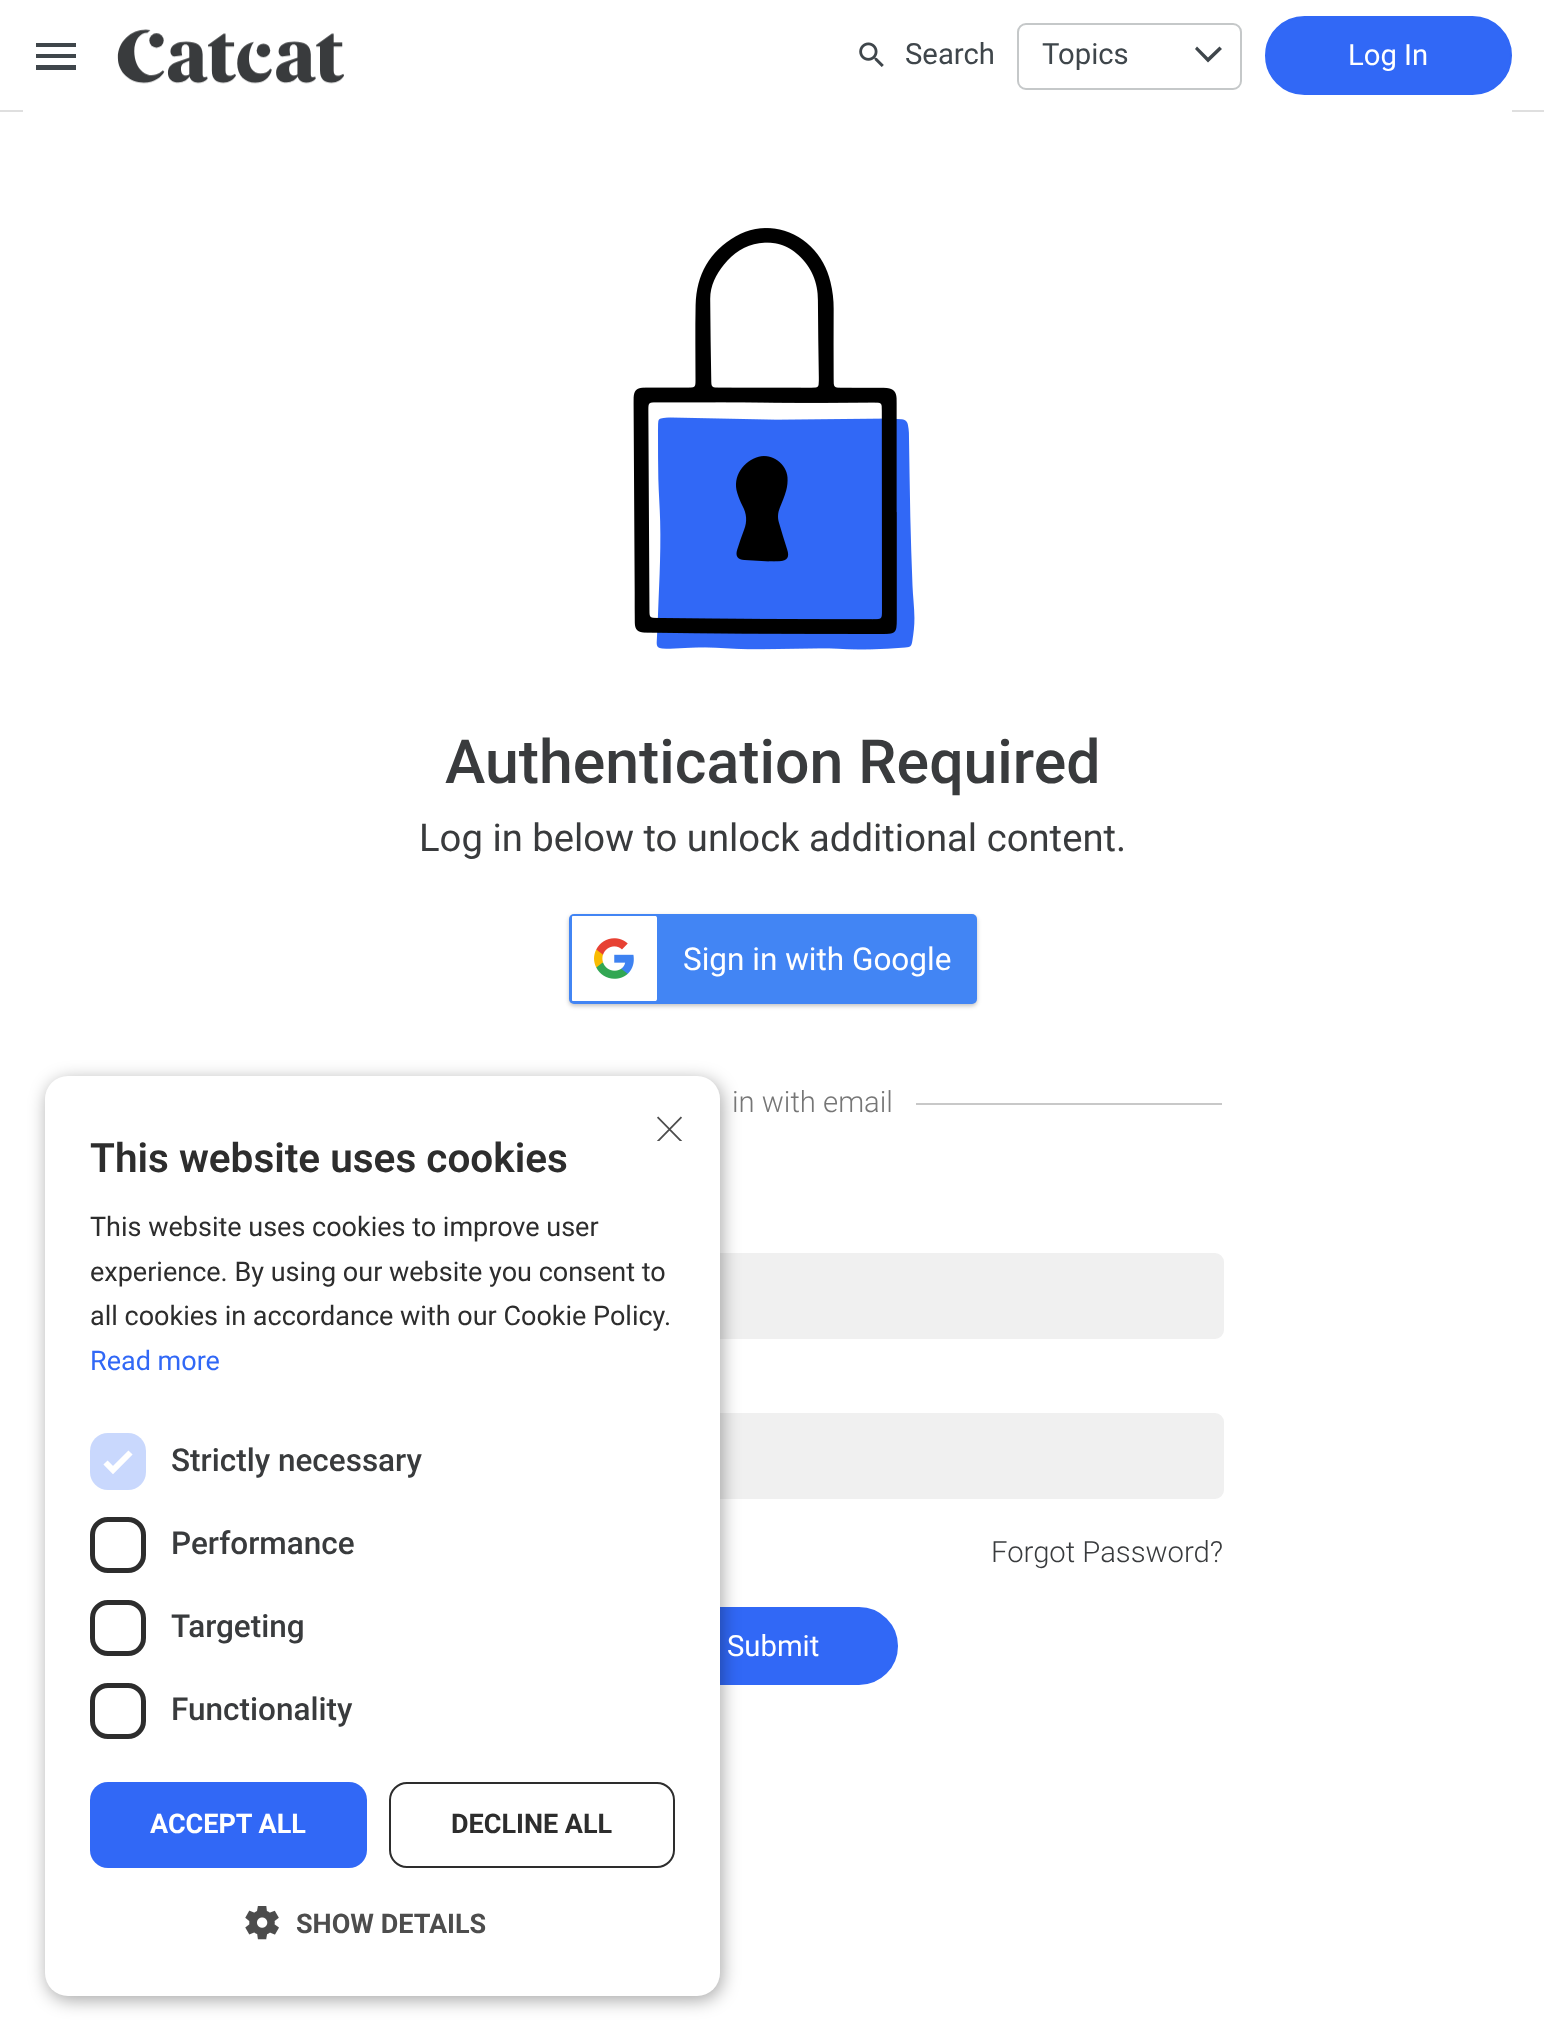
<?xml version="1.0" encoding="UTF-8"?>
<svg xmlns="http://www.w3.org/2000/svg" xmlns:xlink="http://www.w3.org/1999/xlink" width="1544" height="2040">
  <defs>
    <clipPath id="clip1"><rect x="653" y="1107" width="33" height="34" /></clipPath>
  </defs>
  <rect width="100%" height="100%" fill="#ffffff" />
  <rect y="110" width="1544" height="2" fill="#dfdfdf" />
  <rect x="23" y="110" width="1489" height="2" fill="#ffffff" />
  <path d="M 36 70 h 40 v -5 h -40 z m 0 -12 h 40 v -4 h -40 z m 0 -15 v 4 h 40 v -4 z" fill="#3f464b" />
  <image x="117" y="29" width="227" height="55" xlink:href="image1.png" />
  <image x="859" y="42" width="25" height="25" xlink:href="image2.png" />
  <rect x="1018" y="24" width="223" height="65" rx="8" fill="none" stroke="#c5c8c9" stroke-width="2" />
  <path d="M 1197 46.5 l 11 11 l 11.5 -11 l 2.5 2.5 l -14 13.5 l -13 -13.5 z" fill="#3f464b" />
  <rect x="1266" y="17" width="245" height="77" rx="38.5" fill="#3168f6" stroke="#3168f6" stroke-width="2" />
  <rect x="325" y="1254" width="898" height="84" rx="8" fill="#f0f0f0" stroke="#f0f0f0" stroke-width="2" />
  <rect x="325" y="1414" width="898" height="84" rx="8" fill="#f0f0f0" stroke="#f0f0f0" stroke-width="2" />
  <rect x="651" y="1608" width="246" height="76" rx="38" fill="#3168f6" stroke="#3168f6" stroke-width="2" />
  <rect x="47" y="1080" width="675" height="920" rx="23" fill="#000000" fill-opacity="0.35" filter="blur(9px)" />
  <rect x="45" y="1076" width="675" height="920" rx="23" fill="#ffffff" />
  <rect x="90" y="1433" width="56" height="57" rx="18" fill="#c9d8fd" />
  <path d="M 105.5 1462.5 l 7.5 7.5 l 17.5 -17.5" fill="none" stroke="#ffffff" stroke-width="5.9" />
  <rect x="92.5" y="1519.5" width="51" height="51" rx="15.5" fill="none" stroke="#2d2d2d" stroke-width="5" />
  <rect x="92.5" y="1602.5" width="51" height="51" rx="15.5" fill="none" stroke="#2d2d2d" stroke-width="5" />
  <rect x="92.5" y="1685.5" width="51" height="51" rx="15.5" fill="none" stroke="#2d2d2d" stroke-width="5" />
  <rect x="90" y="1782" width="277" height="86" rx="18" fill="#3168f6" />
  <rect x="390" y="1783" width="284" height="84" rx="17" fill="none" stroke="#2d2d2d" stroke-width="2" />
  <image x="245" y="1906" width="34" height="34" xlink:href="image3.png" />
  <image x="633" y="228" width="282" height="422" xlink:href="image4.png" />
  <rect x="569" y="916" width="408" height="90" rx="5" fill="#000000" fill-opacity="0.24" filter="blur(2px)" />
  <rect x="569" y="914" width="408" height="90" rx="5" fill="#4285f4" />
  <image x="572" y="916" width="85" height="85" xlink:href="image5.png" />
  <rect x="916" y="1103" width="306" height="2" fill="#c8c8c8" />
  <text x="905" y="64" style="font-family: Roboto; font-size: 29.25px; fill: #3f464b">Search</text>
  <text x="1042" y="64" style="font-family: Roboto; font-size: 29.25px; fill: #3f464b">Topics</text>
  <text x="1348" y="65" style="font-family: Roboto; font-size: 29.25px; fill: #ffffff">Log In</text>
  <g clip-path="url(#clip1)">
    <text x="653" y="1143" style="font-family: Roboto; font-size: 65px; font-weight: 100; fill: #4d4d4d">×</text>
  </g>
  <text x="90" y="1172" style="font-family: Roboto; font-size: 40.5px; font-weight: 600; fill: #2d2d2d">This website uses cookies</text>
  <text x="90" y="1236" style="font-family: Roboto; font-size: 27px; fill: #2d2d2d">This website uses cookies to improve user</text>
  <text x="90" y="1281" style="font-family: Roboto; font-size: 27px; fill: #2d2d2d">experience. By using our website you consent to</text>
  <text x="90" y="1325" style="font-family: Roboto; font-size: 27px; fill: #2d2d2d">all cookies in accordance with our Cookie Policy.</text>
  <text x="90" y="1370" style="font-family: Roboto; font-size: 27px; fill: #3168f6">Read more</text>
  <text x="171" y="1471" style="font-family: Roboto; font-size: 31.5px; font-weight: 500; fill: #393b3d">Strictly necessary</text>
  <text x="171" y="1554" style="font-family: Roboto; font-size: 31.5px; font-weight: 500; fill: #393b3d">Performance</text>
  <text x="171" y="1637" style="font-family: Roboto; font-size: 31.5px; font-weight: 500; fill: #393b3d">Targeting</text>
  <text x="171" y="1720" style="font-family: Roboto; font-size: 31.5px; font-weight: 500; fill: #393b3d">Functionality</text>
  <text x="150" y="1833" style="font-family: Roboto; font-size: 27px; font-weight: bold; fill: #ffffff">ACCEPT ALL</text>
  <text x="451" y="1833" style="font-family: Roboto; font-size: 27px; font-weight: bold; fill: #2d2d2d">DECLINE ALL</text>
  <text x="296" y="1933" style="font-family: Roboto; font-size: 27px; font-weight: bold; fill: #4d4d4d">SHOW DETAILS</text>
  <text x="445" y="783" style="font-family: Roboto; font-size: 60.75px; font-weight: 500; fill: #393b3d">Authentication Required</text>
  <text x="419" y="851" style="font-family: Roboto; font-size: 38.25px; fill: #393b3d">Log in below to unlock additional content.</text>
  <text x="683" y="970" style="font-family: Roboto; font-size: 31.5px; fill: #ffffff">Sign in with Google</text>
  <text x="732" y="1112" style="font-family: Roboto; font-size: 29.25px; font-weight: 300; fill: #767676">in with email</text>
  <text x="991" y="1562" style="font-family: Roboto; font-size: 29.25px; font-weight: 300; fill: #393b3d">Forgot Password?</text>
  <text x="727" y="1656" style="font-family: Roboto; font-size: 29.25px; fill: #ffffff">Submit</text>
</svg>
